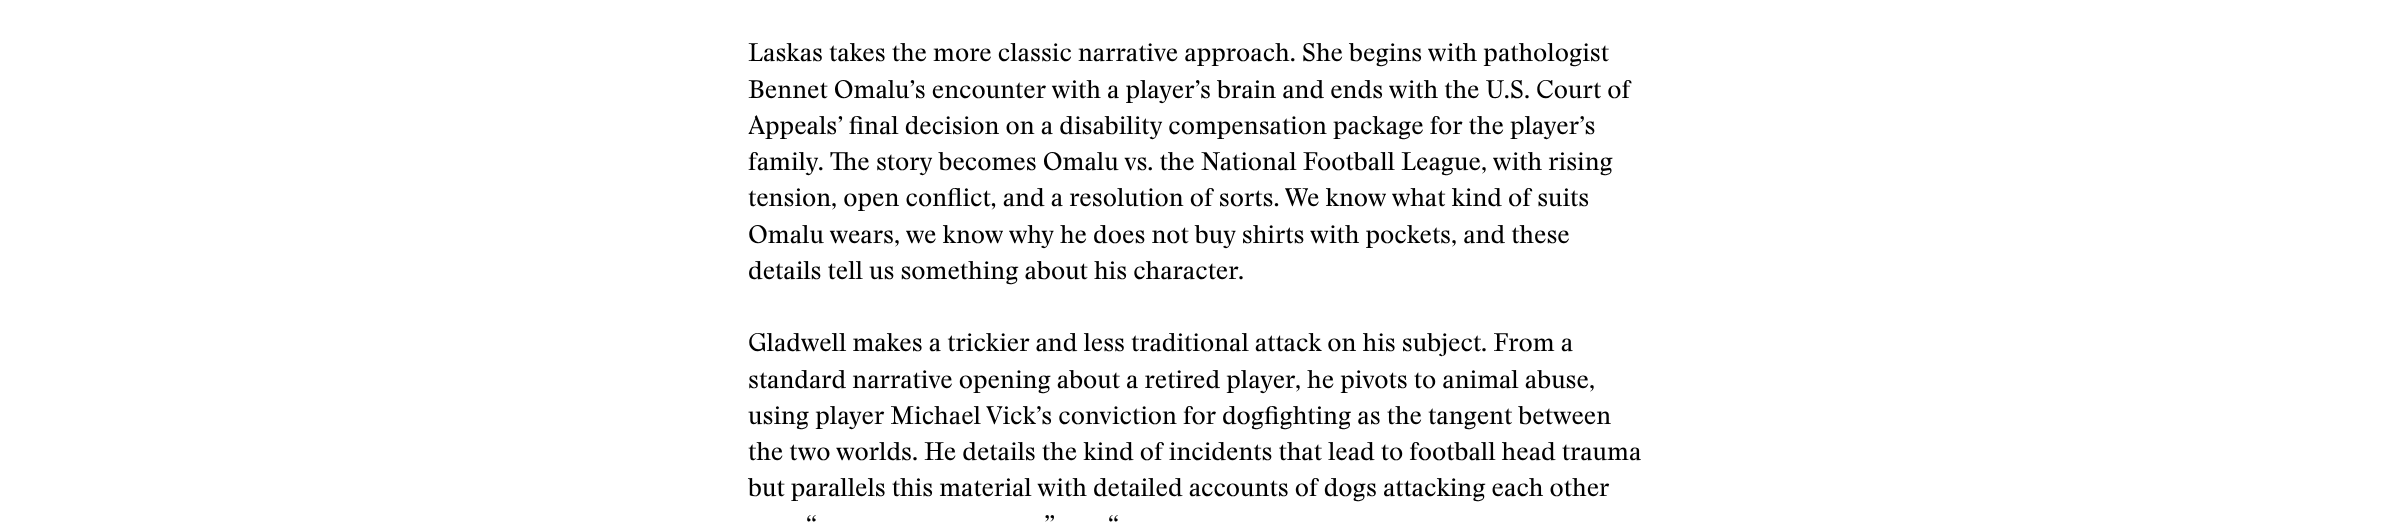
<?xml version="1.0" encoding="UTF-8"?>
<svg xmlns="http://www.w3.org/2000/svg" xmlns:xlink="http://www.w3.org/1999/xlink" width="2395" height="526">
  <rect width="100%" height="100%" fill="#ffffff" />
  <text x="748" y="61" style="font-family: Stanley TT; font-size: 25px; fill: #000000">Laskas takes the more classic narrative approach. She begins with pathologist</text>
  <text x="748" y="98" style="font-family: Stanley TT; font-size: 25px; fill: #000000">Bennet Omalu’s encounter with a player’s brain and ends with the U.S. Court of</text>
  <text x="748" y="134" style="font-family: Stanley TT; font-size: 25px; fill: #000000">Appeals’ final decision on a disability compensation package for the player’s</text>
  <text x="748" y="170" style="font-family: Stanley TT; font-size: 25px; fill: #000000">family. The story becomes Omalu vs. the National Football League, with rising</text>
  <text x="748" y="206" style="font-family: Stanley TT; font-size: 25px; fill: #000000">tension, open conflict, and a resolution of sorts. We know what kind of suits</text>
  <text x="748" y="243" style="font-family: Stanley TT; font-size: 25px; fill: #000000">Omalu wears, we know why he does not buy shirts with pockets, and these</text>
  <text x="748" y="279" style="font-family: Stanley TT; font-size: 25px; fill: #000000">details tell us something about his character.</text>
  <text x="748" y="351" style="font-family: Stanley TT; font-size: 25px; fill: #000000">Gladwell makes a trickier and less traditional attack on his subject. From a</text>
  <text x="748" y="388" style="font-family: Stanley TT; font-size: 25px; fill: #000000">standard narrative opening about a retired player, he pivots to animal abuse,</text>
  <text x="748" y="424" style="font-family: Stanley TT; font-size: 25px; fill: #000000">using player Michael Vick’s conviction for dogfighting as the tangent between</text>
  <text x="748" y="460" style="font-family: Stanley TT; font-size: 25px; fill: #000000">the two worlds. He details the kind of incidents that lead to football head trauma</text>
  <text x="748" y="496" style="font-family: Stanley TT; font-size: 25px; fill: #000000">but parallels this material with detailed accounts of dogs attacking each other</text>
  <text x="806" y="533" style="font-family: Stanley TT; font-size: 25px; fill: #000000">“</text>
  <text x="1044" y="533" style="font-family: Stanley TT; font-size: 25px; fill: #000000">”</text>
  <text x="1108" y="533" style="font-family: Stanley TT; font-size: 25px; fill: #000000">“</text>
</svg>
